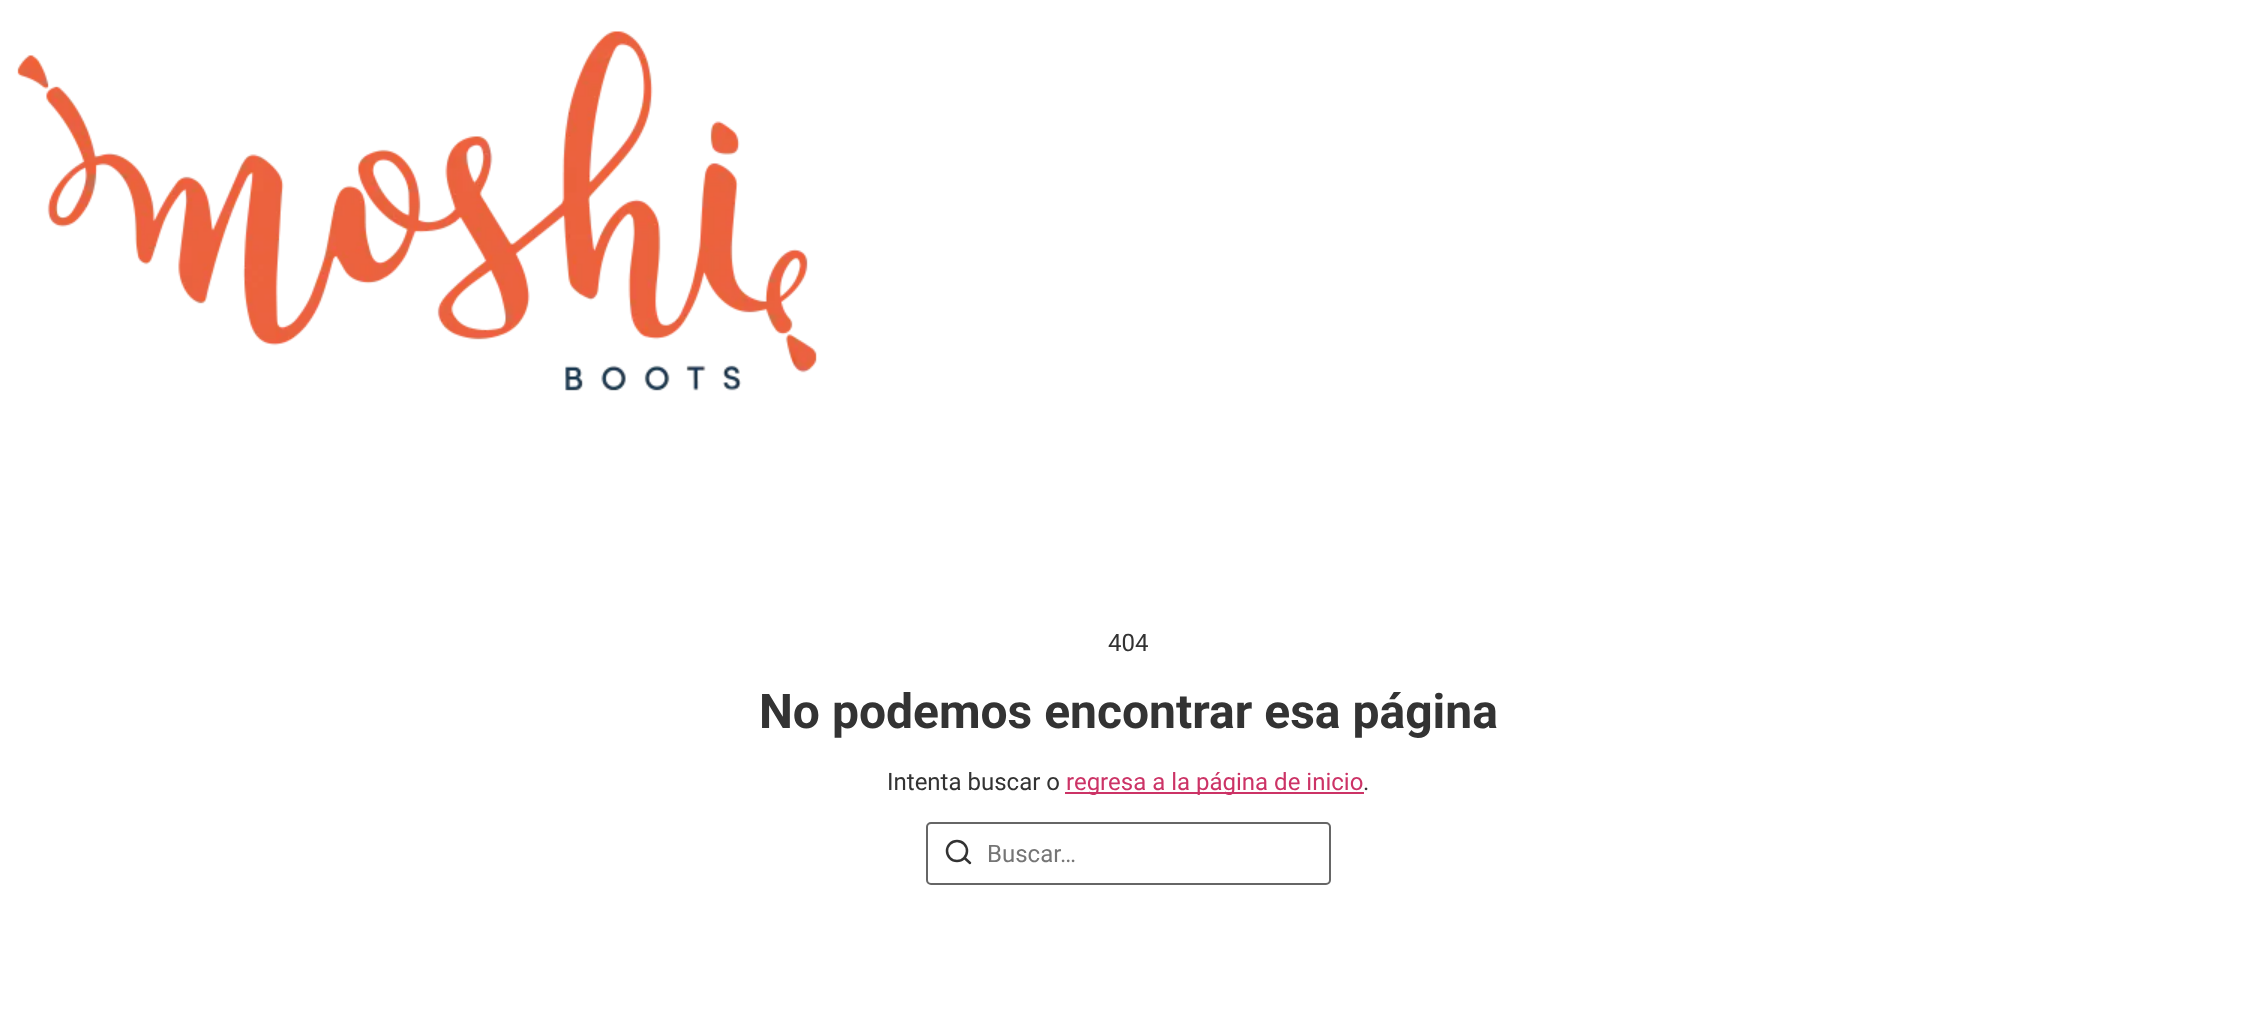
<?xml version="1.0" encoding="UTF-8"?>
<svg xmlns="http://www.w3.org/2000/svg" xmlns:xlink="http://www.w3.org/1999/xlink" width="2256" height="1019">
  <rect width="100%" height="100%" fill="#ffffff" />
  <image x="17" y="31" width="800" height="360" xlink:href="image1.png" />
  <rect x="1065" y="792" width="299" height="2" fill="#cc3366" />
  <rect x="927" y="823" width="403" height="61" rx="4" fill="none" stroke="#666666" stroke-width="2" />
  <circle cx="957" cy="851" r="10" fill="none" stroke="#333333" stroke-width="2.5" />
  <path d="M 970 863 l -5.5 -5" fill="none" stroke="#333333" stroke-width="2.5" stroke-linecap="round" stroke-linejoin="round" />
  <text x="1108" y="651" style="font-family: Roboto; font-size: 24px; fill: #333333">404</text>
  <text x="759" y="728" style="font-family: Roboto; font-size: 48px; font-weight: bold; fill: #333333">No podemos encontrar esa página</text>
  <text x="887" y="790" style="font-family: Roboto; font-size: 24px; fill: #333333">Intenta buscar o</text>
  <text x="1066" y="790" style="font-family: Roboto; font-size: 24px; fill: #cc3366">regresa a la página de inicio</text>
  <text x="1363" y="790" style="font-family: Roboto; font-size: 24px; fill: #333333">.</text>
  <text x="987" y="862" style="font-family: Roboto; font-size: 24px; fill: #757575">Buscar…</text>
</svg>
